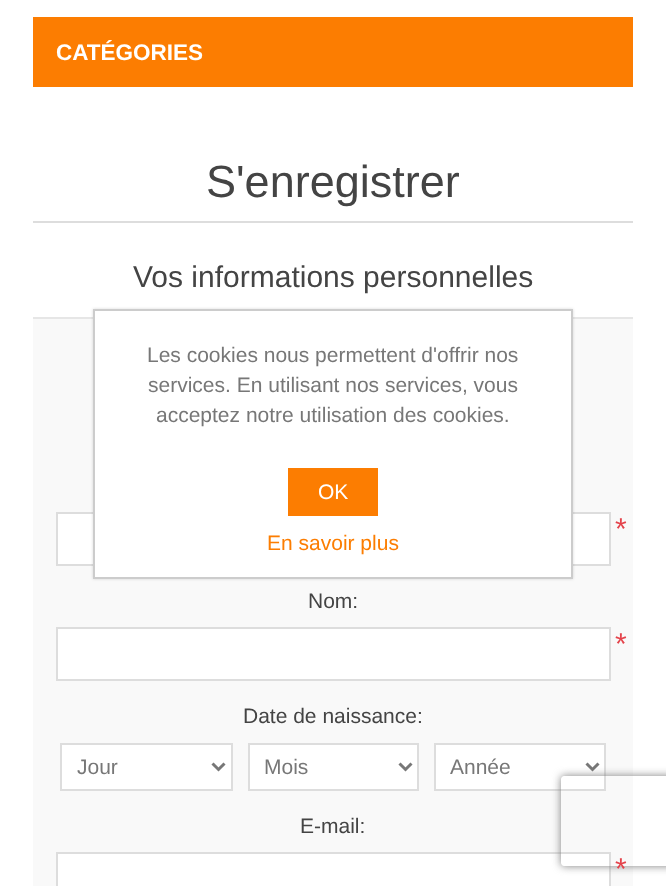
<?xml version="1.0" encoding="UTF-8"?>
<svg xmlns="http://www.w3.org/2000/svg" xmlns:xlink="http://www.w3.org/1999/xlink" width="666" height="886">
  <defs>
    <clipPath id="clip1"><path d="M 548 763 h 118 v 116 h -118 z m 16 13 h 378 c 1.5 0 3 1.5 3 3 v 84 c 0 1.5 -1.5 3 -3 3 h -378 c -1.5 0 -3 -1.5 -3 -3 v -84 c 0 -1.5 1.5 -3 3 -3 z" clip-rule="evenodd" /></clipPath>
  </defs>
  <rect width="100%" height="100%" fill="#ffffff" />
  <rect x="33" y="17" width="600" height="70" fill="#fc7d01" />
  <rect x="33" y="221" width="600" height="2" fill="#dddddd" />
  <rect x="33" y="319" width="600" height="567" fill="#f9f9f9" />
  <rect x="33" y="317" width="600" height="2" fill="#e6e6e6" />
  <rect x="57" y="513" width="553" height="52" fill="#ffffff" stroke="#dddddd" stroke-width="2" />
  <rect x="57" y="628" width="553" height="52" fill="#ffffff" stroke="#dddddd" stroke-width="2" />
  <rect x="61" y="744" width="171" height="46" fill="#ffffff" stroke="#dddddd" stroke-width="2" />
  <path d="M 212.5 763.5 l 6 6 l 6 -6" fill="none" stroke="#777777" stroke-width="3" />
  <rect x="249" y="744" width="169" height="46" fill="#ffffff" stroke="#dddddd" stroke-width="2" />
  <path d="M 399.5 763.5 l 6 6 l 6 -6" fill="none" stroke="#777777" stroke-width="3" />
  <rect x="435" y="744" width="170" height="46" fill="#ffffff" stroke="#dddddd" stroke-width="2" />
  <path d="M 586.5 763.5 l 6 6 l 6 -6" fill="none" stroke="#777777" stroke-width="3" />
  <rect x="57" y="853" width="553" height="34" fill="#ffffff" stroke="#dddddd" stroke-width="2" />
  <rect x="93" y="309" width="480" height="270" fill="#000000" fill-opacity="0.15" filter="blur(1.5px)" />
  <rect x="94" y="310" width="478" height="268" fill="#ffffff" stroke="#cccccc" stroke-width="2" />
  <rect x="288" y="468" width="90" height="48" fill="#fc7d01" />
  <g clip-path="url(#clip1)">
    <rect x="561" y="776" width="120" height="90" rx="3" fill="#808080" filter="blur(4px)" />
  </g>
  <text x="56" y="60" style="font-family: Liberation Sans; font-size: 22.5px; font-weight: bold; fill: #ffffff">CATÉGORIES</text>
  <text x="206" y="197" style="font-family: Liberation Sans; font-size: 45px; fill: #444444">S'enregistrer</text>
  <text x="133" y="287" style="font-family: Liberation Sans; font-size: 30px; fill: #444444">Vos informations personnelles</text>
  <text x="615" y="539" style="font-family: Liberation Sans; font-size: 30px; fill: #e4434b">*</text>
  <text x="308" y="608" style="font-family: Liberation Sans; font-size: 21px; fill: #444444">Nom:</text>
  <text x="615" y="654" style="font-family: Liberation Sans; font-size: 30px; fill: #e4434b">*</text>
  <text x="243" y="723" style="font-family: Liberation Sans; font-size: 21px; fill: #444444">Date de naissance:</text>
  <text x="77" y="774" style="font-family: Liberation Sans; font-size: 21px; fill: #777777">Jour</text>
  <text x="264" y="774" style="font-family: Liberation Sans; font-size: 21px; fill: #777777">Mois</text>
  <text x="450" y="774" style="font-family: Liberation Sans; font-size: 21px; fill: #777777">Année</text>
  <text x="300" y="833" style="font-family: Liberation Sans; font-size: 21px; fill: #444444">E-mail:</text>
  <text x="615" y="879" style="font-family: Liberation Sans; font-size: 30px; fill: #e4434b">*</text>
  <text x="147" y="362" style="font-family: Liberation Sans; font-size: 21px; fill: #777777">Les cookies nous permettent d'offrir nos</text>
  <text x="148" y="392" style="font-family: Liberation Sans; font-size: 21px; fill: #777777">services. En utilisant nos services, vous</text>
  <text x="156" y="422" style="font-family: Liberation Sans; font-size: 21px; fill: #777777">acceptez notre utilisation des cookies.</text>
  <text x="318" y="499" style="font-family: Liberation Sans; font-size: 21px; fill: #ffffff">OK</text>
  <text x="267" y="550" style="font-family: Liberation Sans; font-size: 21px; fill: #fc7d01">En savoir plus</text>
</svg>
